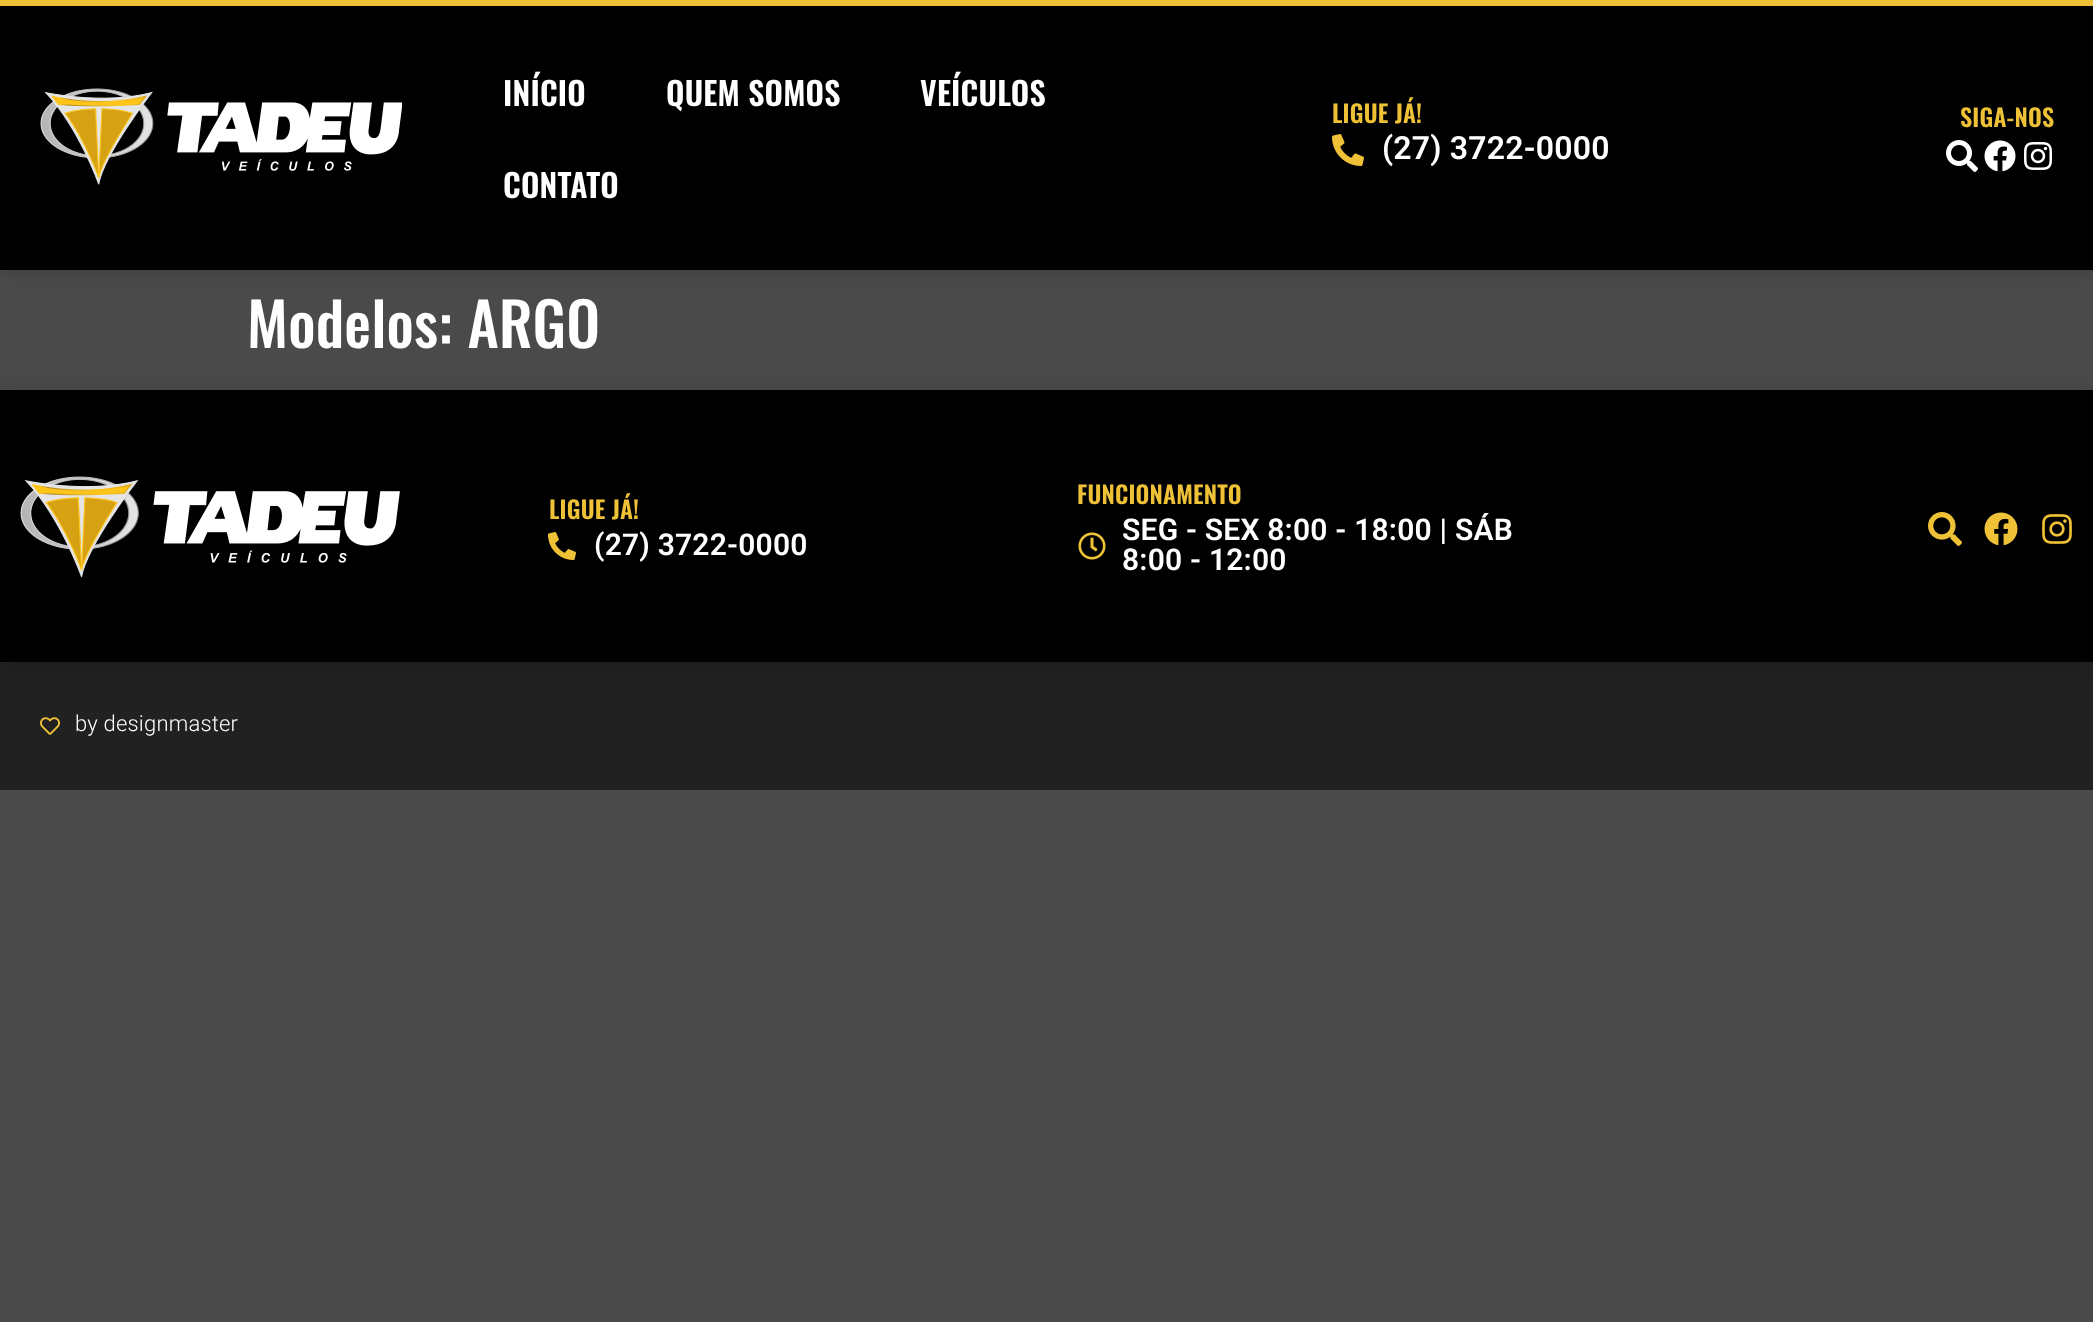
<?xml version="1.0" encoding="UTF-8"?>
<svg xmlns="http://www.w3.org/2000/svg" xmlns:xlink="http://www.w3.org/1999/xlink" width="2093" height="1322">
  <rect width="100%" height="100%" fill="#4a4a4a" />
  <rect width="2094" height="270" fill="#000000" fill-opacity="0.2" filter="blur(9px)" />
  <rect y="6" width="2093" height="264" fill="#000000" />
  <rect width="2093" height="6" fill="#efc136" />
  <image x="40" y="88" width="362" height="97" xlink:href="image1.png" />
  <image x="1332" y="134" width="32" height="32" xlink:href="image2.png" />
  <image x="1946" y="140" width="32" height="32" xlink:href="image3.png" />
  <image x="1984" y="140" width="32" height="32" xlink:href="image4.png" />
  <image x="2024" y="142" width="28" height="28" xlink:href="image5.png" />
  <rect y="662" width="2093" height="128" fill="#212121" />
  <rect y="390" width="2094" height="272" fill="#000000" fill-opacity="0.14" filter="blur(9px)" />
  <rect y="390" width="2093" height="272" fill="#000000" />
  <image x="20" y="476" width="380" height="101" xlink:href="image6.png" />
  <image x="548" y="532" width="28" height="28" xlink:href="image7.png" />
  <image x="1078" y="532" width="28" height="28" xlink:href="image8.png" />
  <image x="1928" y="512" width="34" height="34" xlink:href="image9.png" />
  <image x="1984" y="512" width="34" height="34" xlink:href="image10.png" />
  <image x="2042" y="514" width="30" height="30" xlink:href="image11.png" />
  <image x="40" y="717" width="20" height="18" xlink:href="image12.png" />
  <text x="503" y="106" style="font-family: Oswald; font-size: 32px; font-weight: 600; letter-spacing: 0.2px; fill: #ffffff">INÍCIO</text>
  <text x="666" y="106" style="font-family: Oswald; font-size: 32px; font-weight: 600; letter-spacing: 0.2px; fill: #ffffff">QUEM SOMOS</text>
  <text x="920" y="106" style="font-family: Oswald; font-size: 32px; font-weight: 600; letter-spacing: 0.2px; fill: #ffffff">VEÍCULOS</text>
  <text x="503" y="198" style="font-family: Oswald; font-size: 32px; font-weight: 600; letter-spacing: 0.2px; fill: #ffffff">CONTATO</text>
  <text x="1332" y="123" style="font-family: Oswald; font-size: 24px; font-weight: 600; letter-spacing: 0.2px; fill: #efc136">LIGUE JÁ!</text>
  <text x="1382" y="159" style="font-family: Roboto; font-size: 32px; font-weight: 600; letter-spacing: 0.2px; fill: #ffffff">(27) 3722-0000</text>
  <text x="1960" y="127" style="font-family: Oswald; font-size: 24px; font-weight: 600; letter-spacing: 0.2px; fill: #efc136">SIGA-NOS</text>
  <text x="247" y="348" style="font-family: Oswald; font-size: 60px; font-weight: 500; letter-spacing: 0.2px; fill: #ffffff">Modelos: ARGO</text>
  <text x="549" y="519" style="font-family: Oswald; font-size: 24px; font-weight: 600; letter-spacing: 0.2px; fill: #efc136">LIGUE JÁ!</text>
  <text x="594" y="555" style="font-family: Roboto; font-size: 30px; font-weight: 600; letter-spacing: 0.2px; fill: #ffffff">(27) 3722-0000</text>
  <text x="1077" y="504" style="font-family: Oswald; font-size: 24px; font-weight: 600; letter-spacing: 0.2px; fill: #efc136">FUNCIONAMENTO</text>
  <text x="1122" y="540" style="font-family: Roboto; font-size: 30px; font-weight: 600; letter-spacing: 0.2px; fill: #ffffff">SEG - SEX 8:00 - 18:00 | SÁB</text>
  <text x="1122" y="570" style="font-family: Roboto; font-size: 30px; font-weight: 600; letter-spacing: 0.2px; fill: #ffffff">8:00 - 12:00</text>
  <text x="75" y="731" style="font-family: Roboto; font-size: 22px; font-weight: 300; letter-spacing: 0.2px; fill: #ffffff">by designmaster</text>
</svg>
